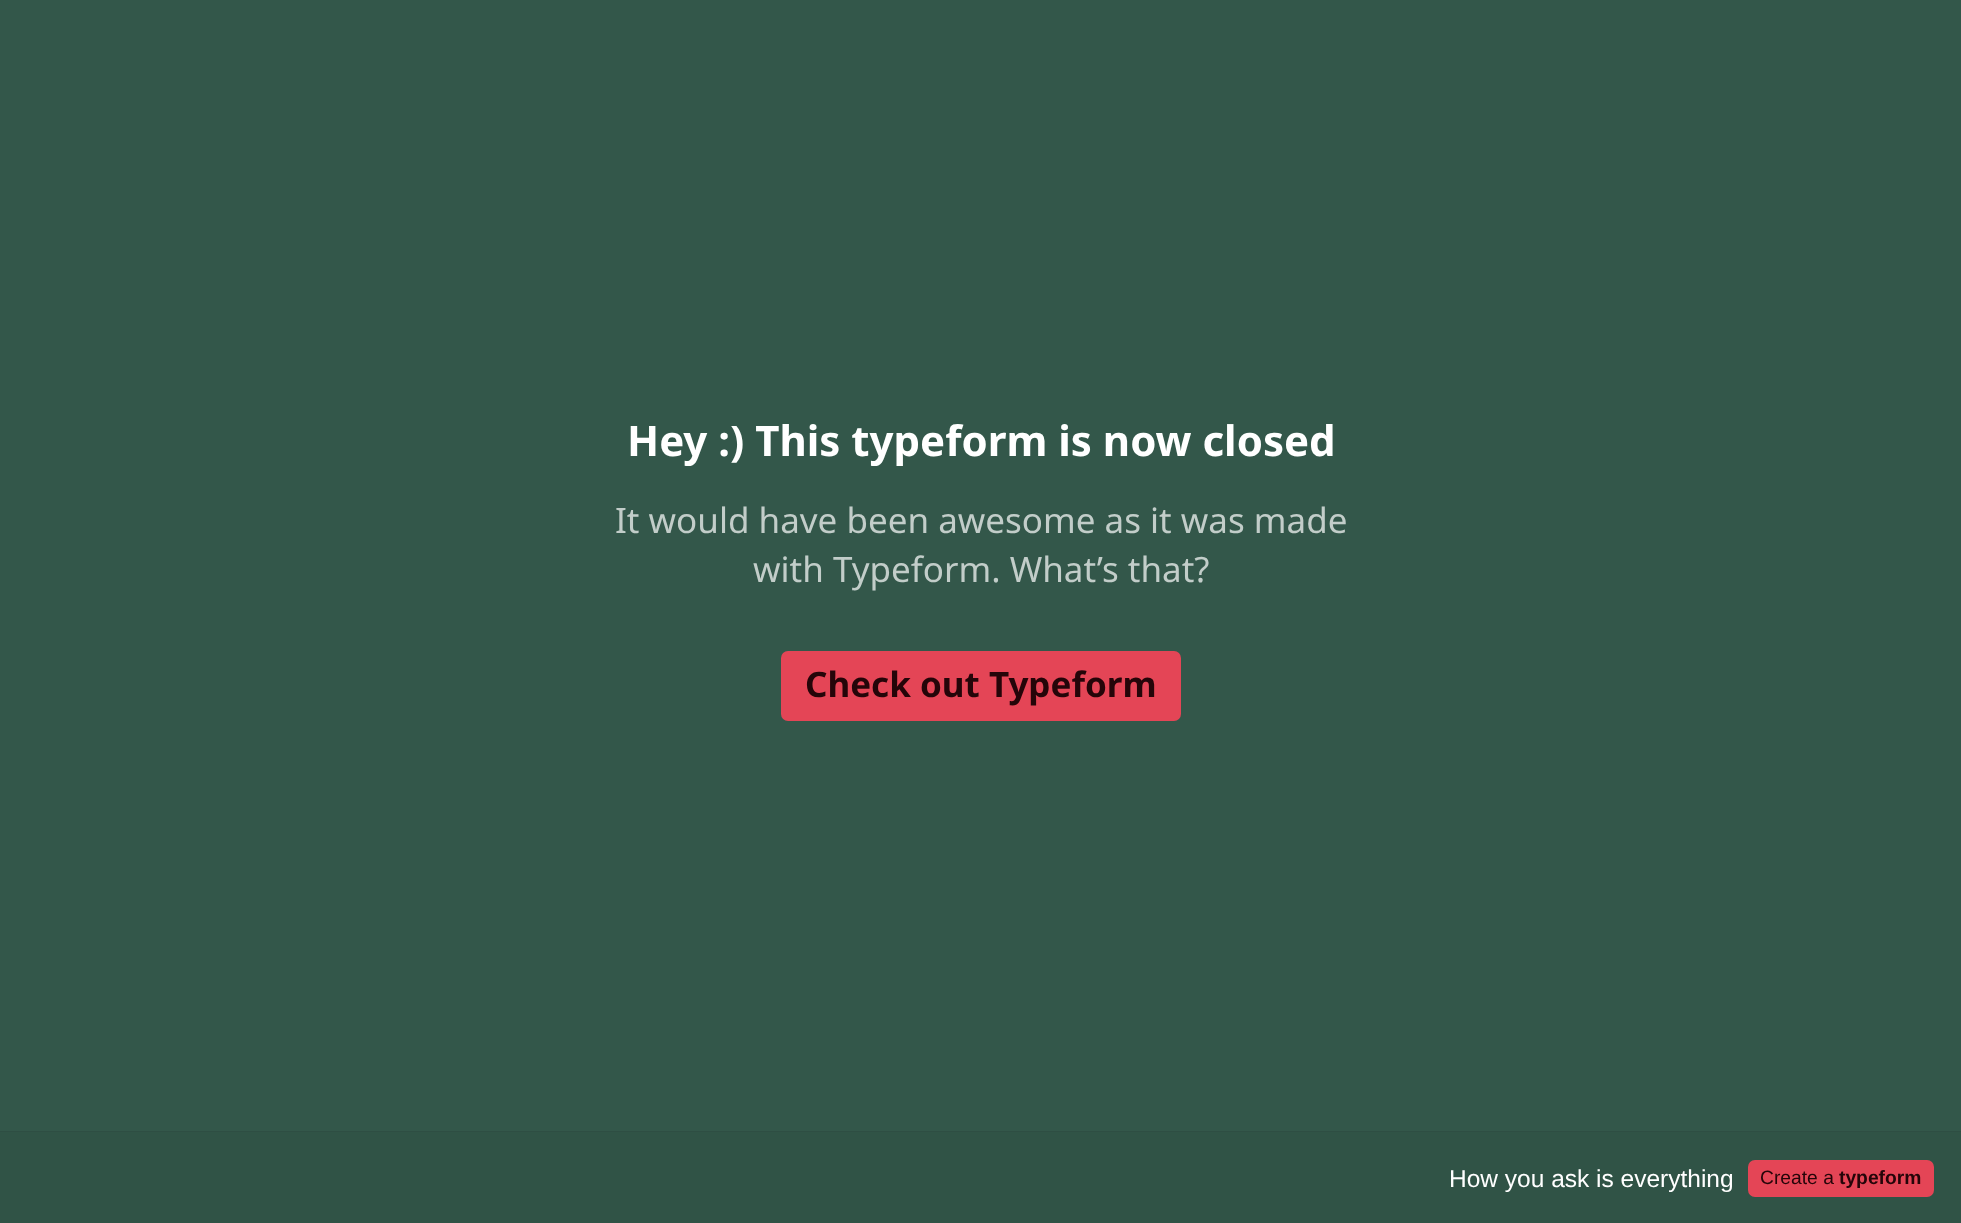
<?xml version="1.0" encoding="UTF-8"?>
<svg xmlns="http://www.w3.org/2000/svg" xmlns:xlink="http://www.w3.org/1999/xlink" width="1961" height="1223">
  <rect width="100%" height="100%" fill="#33574a" />
  <rect x="781" y="651" width="400" height="70" rx="7" fill="#e44556" />
  <path d="M 0 1131 v 1 h 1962 v 90 v -91 z" fill="#2e4e43" />
  <rect y="1132" width="1961" height="91" fill="#305346" />
  <rect x="1749" y="1161" width="184" height="35" rx="6" fill="#e44556" stroke="#e44556" stroke-width="2" />
  <text x="627" y="456" style="font-family: Noto Sans; font-size: 42px; font-weight: bold; fill: #ffffff">Hey :) This typeform is now closed</text>
  <text x="615" y="533" style="font-family: Noto Sans; font-size: 35px; fill: #c2cdc9">It would have been awesome as it was made</text>
  <text x="753" y="582" style="font-family: Noto Sans; font-size: 35px; fill: #c2cdc9">with Typeform. What’s that?</text>
  <text x="805" y="697" style="font-family: Noto Sans; font-size: 35px; font-weight: bold; fill: #250509">Check out Typeform</text>
  <text x="1449" y="1187" style="font-family: Liberation Sans; font-size: 24.5px; fill: #ffffff">How you ask is everything</text>
  <text x="1760" y="1184" style="font-family: Liberation Sans; font-size: 19.25px; fill: #250509">Create a</text>
  <text x="1839" y="1184" style="font-family: Liberation Sans; font-size: 19.25px; font-weight: bold; fill: #250509">typeform</text>
</svg>
